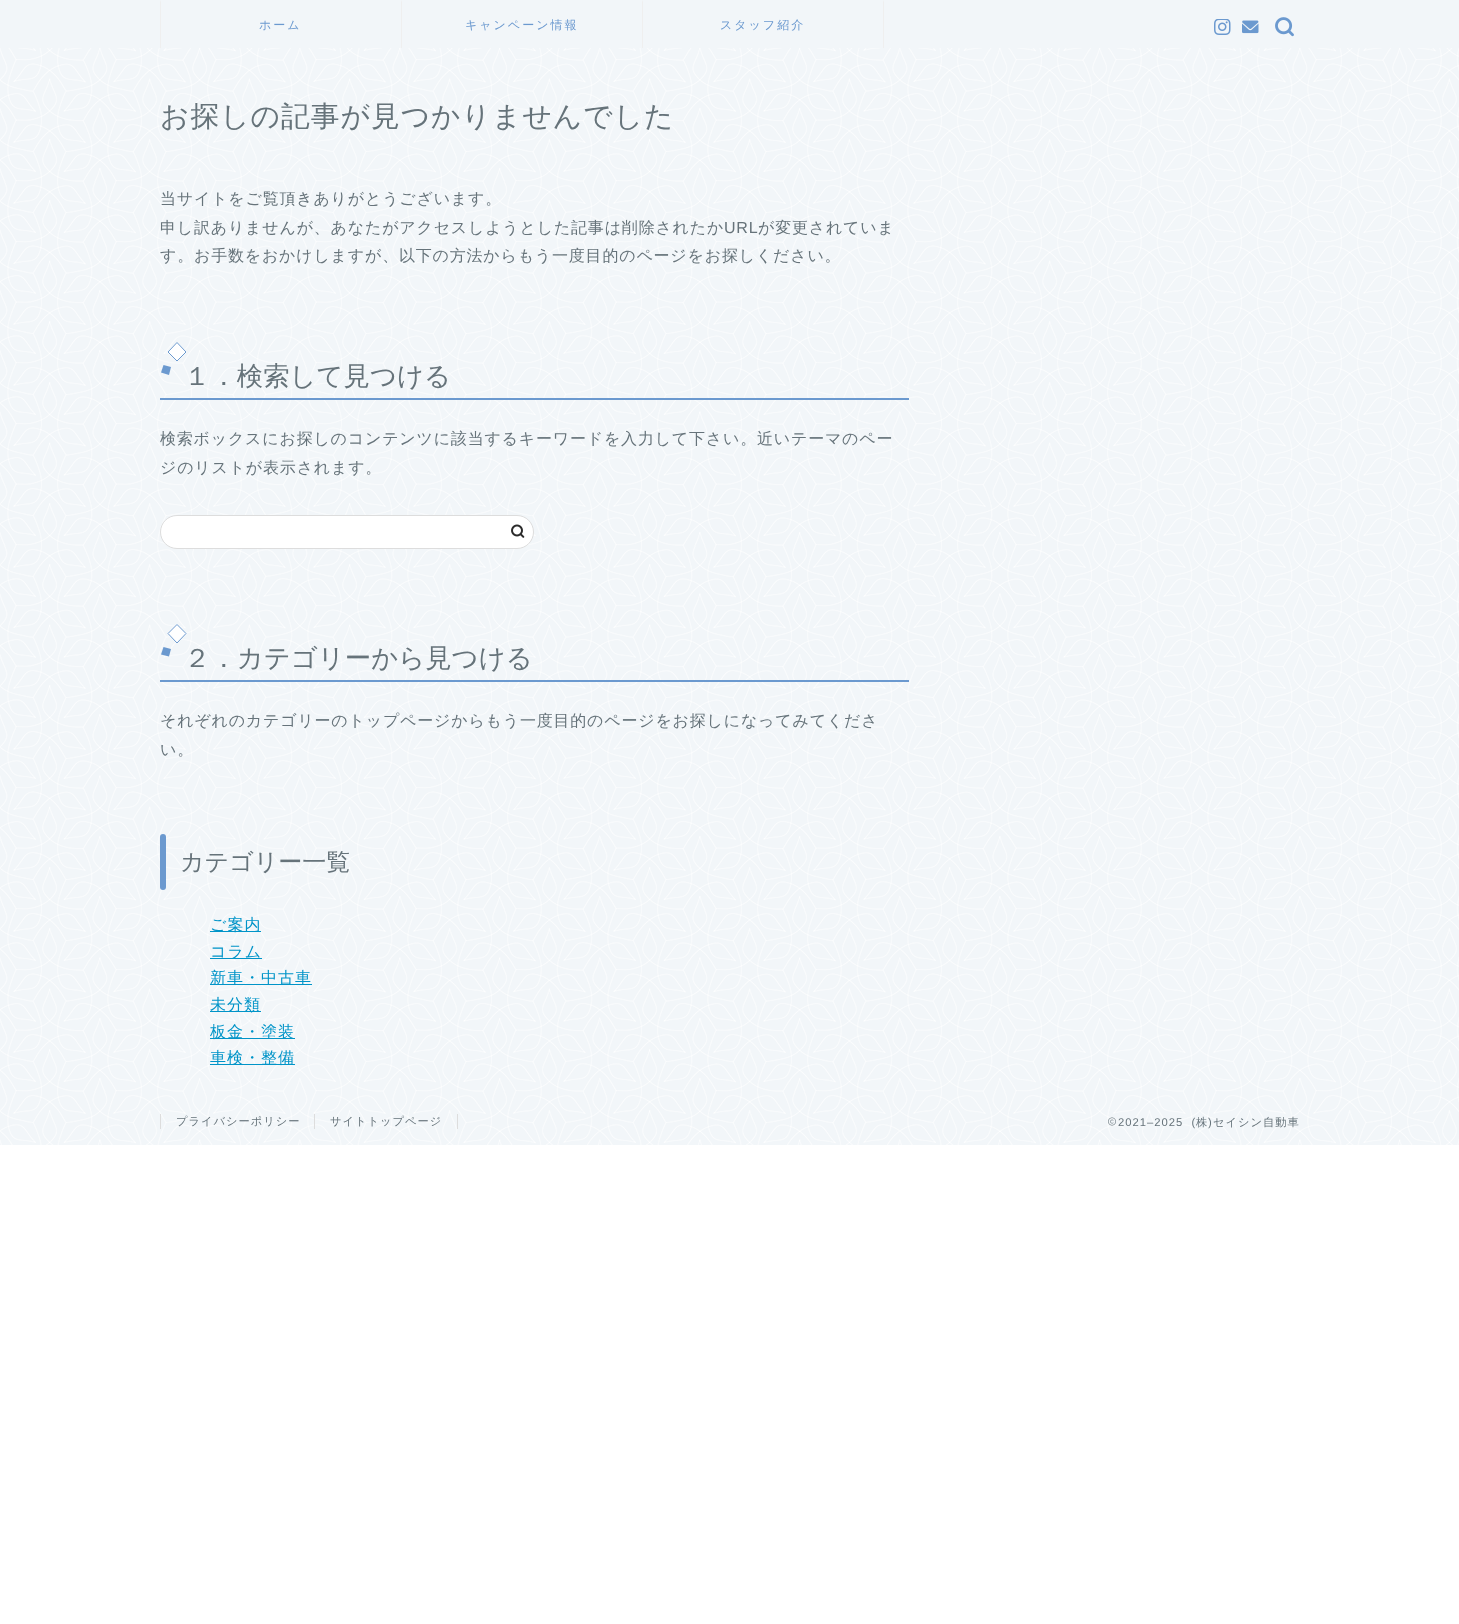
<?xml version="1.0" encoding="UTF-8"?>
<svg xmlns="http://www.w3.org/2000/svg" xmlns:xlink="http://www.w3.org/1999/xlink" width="1459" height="1624">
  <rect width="100%" height="100%" fill="#ffffff" />
  <rect width="1459" height="1145" fill="#f2f6f9" />
  <image x="0" y="48" width="1459" height="1097" xlink:href="image1.png" />
  <path d="M 160 48 v -48 l 1 2 v 46 z" fill="#efefef" />
  <path d="M 401 48 v -48 l 1 2 v 46 z" fill="#efefef" />
  <path d="M 884 0 v 48 h -1 v -46 z" fill="#efefef" />
  <path d="M 642 48 v -48 l 1 2 v 46 z" fill="#efefef" />
  <image x="1214" y="19" width="17" height="16" xlink:href="image2.png" />
  <image x="1242" y="20" width="17" height="14" xlink:href="image3.png" />
  <image x="1275" y="17" width="19" height="20" xlink:href="image4.png" />
  <rect x="160" y="398" width="749" height="2" fill="#6b99cf" />
  <path d="M 177 342 l 10 10 l -10 9.5 l -10 -9.5 z" fill="#ffffff" />
  <path d="M 177 342.5 l 9 9.5 l -9 9 l -9 -9 z" fill="none" stroke="#6b99cf" />
  <path d="M 163.5 365 l 7.5 2 l -2 8 l -8 -2.5 z" fill="#6b99cf" />
  <rect x="160.5" y="515.5" width="373" height="33" rx="16.5" fill="#ffffff" stroke="#dddddd" />
  <image x="511" y="524" width="14" height="14" xlink:href="image5.png" />
  <rect x="160" y="680" width="749" height="2" fill="#6b99cf" />
  <path d="M 177 623.5 l 10 10 l -10 10 l -10 -10 z" fill="#ffffff" />
  <path d="M 177 624.5 l 9 9 l -9 9.5 l -9 -9.5 z" fill="none" stroke="#6b99cf" />
  <path d="M 163.5 647 l 7.5 2 l -2 7.5 l -8 -2 z" fill="#6b99cf" />
  <rect x="160" y="834" width="6" height="56" rx="3" fill="#6b99cf" />
  <rect x="210" y="931" width="51" height="1" fill="#0094c8" />
  <rect x="210" y="958" width="52" height="1" fill="#0094c8" />
  <rect x="210" y="984" width="102" height="1" fill="#0094c8" />
  <rect x="210" y="1011" width="51" height="1" fill="#0094c8" />
  <rect x="210" y="1038" width="85" height="1" fill="#0094c8" />
  <rect x="210" y="1064" width="85" height="1" fill="#0094c8" />
  <rect x="314" y="1114" width="1" height="15" fill="#dddddd" />
  <rect x="160" y="1114" width="1" height="15" fill="#dddddd" />
  <rect x="457" y="1114" width="1" height="15" fill="#dddddd" />
  <image x="1108" y="1117" width="8" height="9" xlink:href="image6.png" />
  <text x="259" y="29" style="font-family: WenQuanYi Zen Hei; font-size: 12px; font-weight: 500; letter-spacing: 2px; fill: #6b99cf">ホーム</text>
  <text x="465" y="29" style="font-family: WenQuanYi Zen Hei; font-size: 12px; font-weight: 500; letter-spacing: 2px; fill: #6b99cf">キャンペーン情報</text>
  <text x="720" y="29" style="font-family: WenQuanYi Zen Hei; font-size: 12px; font-weight: 500; letter-spacing: 2px; fill: #6b99cf">スタッフ紹介</text>
  <text x="160" y="126" style="font-family: WenQuanYi Zen Hei; font-size: 28.75px; font-weight: 500; letter-spacing: 1px; fill: #66737a">お探しの記事が見つかりませんでした</text>
  <text x="160" y="204" style="font-family: WenQuanYi Zen Hei; font-size: 16px; font-weight: 500; letter-spacing: 0.8px; fill: #66737a">当サイトをご覧頂きありがとうございます。</text>
  <text x="160" y="233" style="font-family: WenQuanYi Zen Hei; font-size: 16px; font-weight: 500; letter-spacing: 0.8px; fill: #66737a">申し訳ありませんが、あなたがアクセスしようとした記事は削除されたか</text>
  <text x="724" y="233" style="font-family: Liberation Sans; font-size: 16px; letter-spacing: 0.8px; fill: #66737a">URL</text>
  <text x="758" y="233" style="font-family: WenQuanYi Zen Hei; font-size: 16px; font-weight: 500; letter-spacing: 0.8px; fill: #66737a">が変更されていま</text>
  <text x="160" y="261" style="font-family: WenQuanYi Zen Hei; font-size: 16px; font-weight: 500; letter-spacing: 0.8px; fill: #66737a">す。お手数をおかけしますが、以下の方法からもう一度目的のページをお探しください。</text>
  <text x="184" y="385" style="font-family: WenQuanYi Zen Hei; font-size: 26.4px; font-weight: 500; fill: #66737a">１．検索して見つける</text>
  <text x="160" y="444" style="font-family: WenQuanYi Zen Hei; font-size: 16px; font-weight: 500; letter-spacing: 0.8px; fill: #66737a">検索ボックスにお探しのコンテンツに該当するキーワードを入力して下さい。近いテーマのペー</text>
  <text x="160" y="473" style="font-family: WenQuanYi Zen Hei; font-size: 16px; font-weight: 500; letter-spacing: 0.8px; fill: #66737a">ジのリストが表示されます。</text>
  <text x="184" y="667" style="font-family: WenQuanYi Zen Hei; font-size: 26.4px; font-weight: 500; fill: #66737a">２．カテゴリーから見つける</text>
  <text x="160" y="726" style="font-family: WenQuanYi Zen Hei; font-size: 16px; font-weight: 500; letter-spacing: 0.8px; fill: #66737a">それぞれのカテゴリーのトップページからもう一度目的のページをお探しになってみてくださ</text>
  <text x="160" y="755" style="font-family: WenQuanYi Zen Hei; font-size: 16px; font-weight: 500; letter-spacing: 0.8px; fill: #66737a">い。</text>
  <text x="180" y="870" style="font-family: WenQuanYi Zen Hei; font-size: 24px; font-weight: 500; fill: #66737a">カテゴリー一覧</text>
  <text x="210" y="930" style="font-family: WenQuanYi Zen Hei; font-size: 16px; font-weight: 500; letter-spacing: 1px; fill: #0094c8">ご案内</text>
  <text x="210" y="957" style="font-family: WenQuanYi Zen Hei; font-size: 16px; font-weight: 500; letter-spacing: 1px; fill: #0094c8">コラム</text>
  <text x="210" y="983" style="font-family: WenQuanYi Zen Hei; font-size: 16px; font-weight: 500; letter-spacing: 1px; fill: #0094c8">新車・中古車</text>
  <text x="210" y="1010" style="font-family: WenQuanYi Zen Hei; font-size: 16px; font-weight: 500; letter-spacing: 1px; fill: #0094c8">未分類</text>
  <text x="210" y="1037" style="font-family: WenQuanYi Zen Hei; font-size: 16px; font-weight: 500; letter-spacing: 1px; fill: #0094c8">板金・塗装</text>
  <text x="210" y="1063" style="font-family: WenQuanYi Zen Hei; font-size: 16px; font-weight: 500; letter-spacing: 1px; fill: #0094c8">車検・整備</text>
  <text x="176" y="1125" style="font-family: WenQuanYi Zen Hei; font-size: 11.25px; font-weight: 500; letter-spacing: 1px; fill: #66737a">プライバシーポリシー</text>
  <text x="330" y="1125" style="font-family: WenQuanYi Zen Hei; font-size: 11.25px; font-weight: 500; letter-spacing: 1px; fill: #66737a">サイトトップページ</text>
  <text x="1118" y="1126" style="font-family: Liberation Sans; font-size: 11.25px; letter-spacing: 1px; fill: #66737a" xml:space="preserve">2021–2025  (</text>
  <text x="1196" y="1126" style="font-family: WenQuanYi Zen Hei; font-size: 11.25px; font-weight: 500; letter-spacing: 1px; fill: #66737a">株</text>
  <text x="1208" y="1126" style="font-family: Liberation Sans; font-size: 11.25px; letter-spacing: 1px; fill: #66737a">)</text>
  <text x="1213" y="1126" style="font-family: WenQuanYi Zen Hei; font-size: 11.25px; font-weight: 500; letter-spacing: 1px; fill: #66737a">セイシン自動車</text>
</svg>
